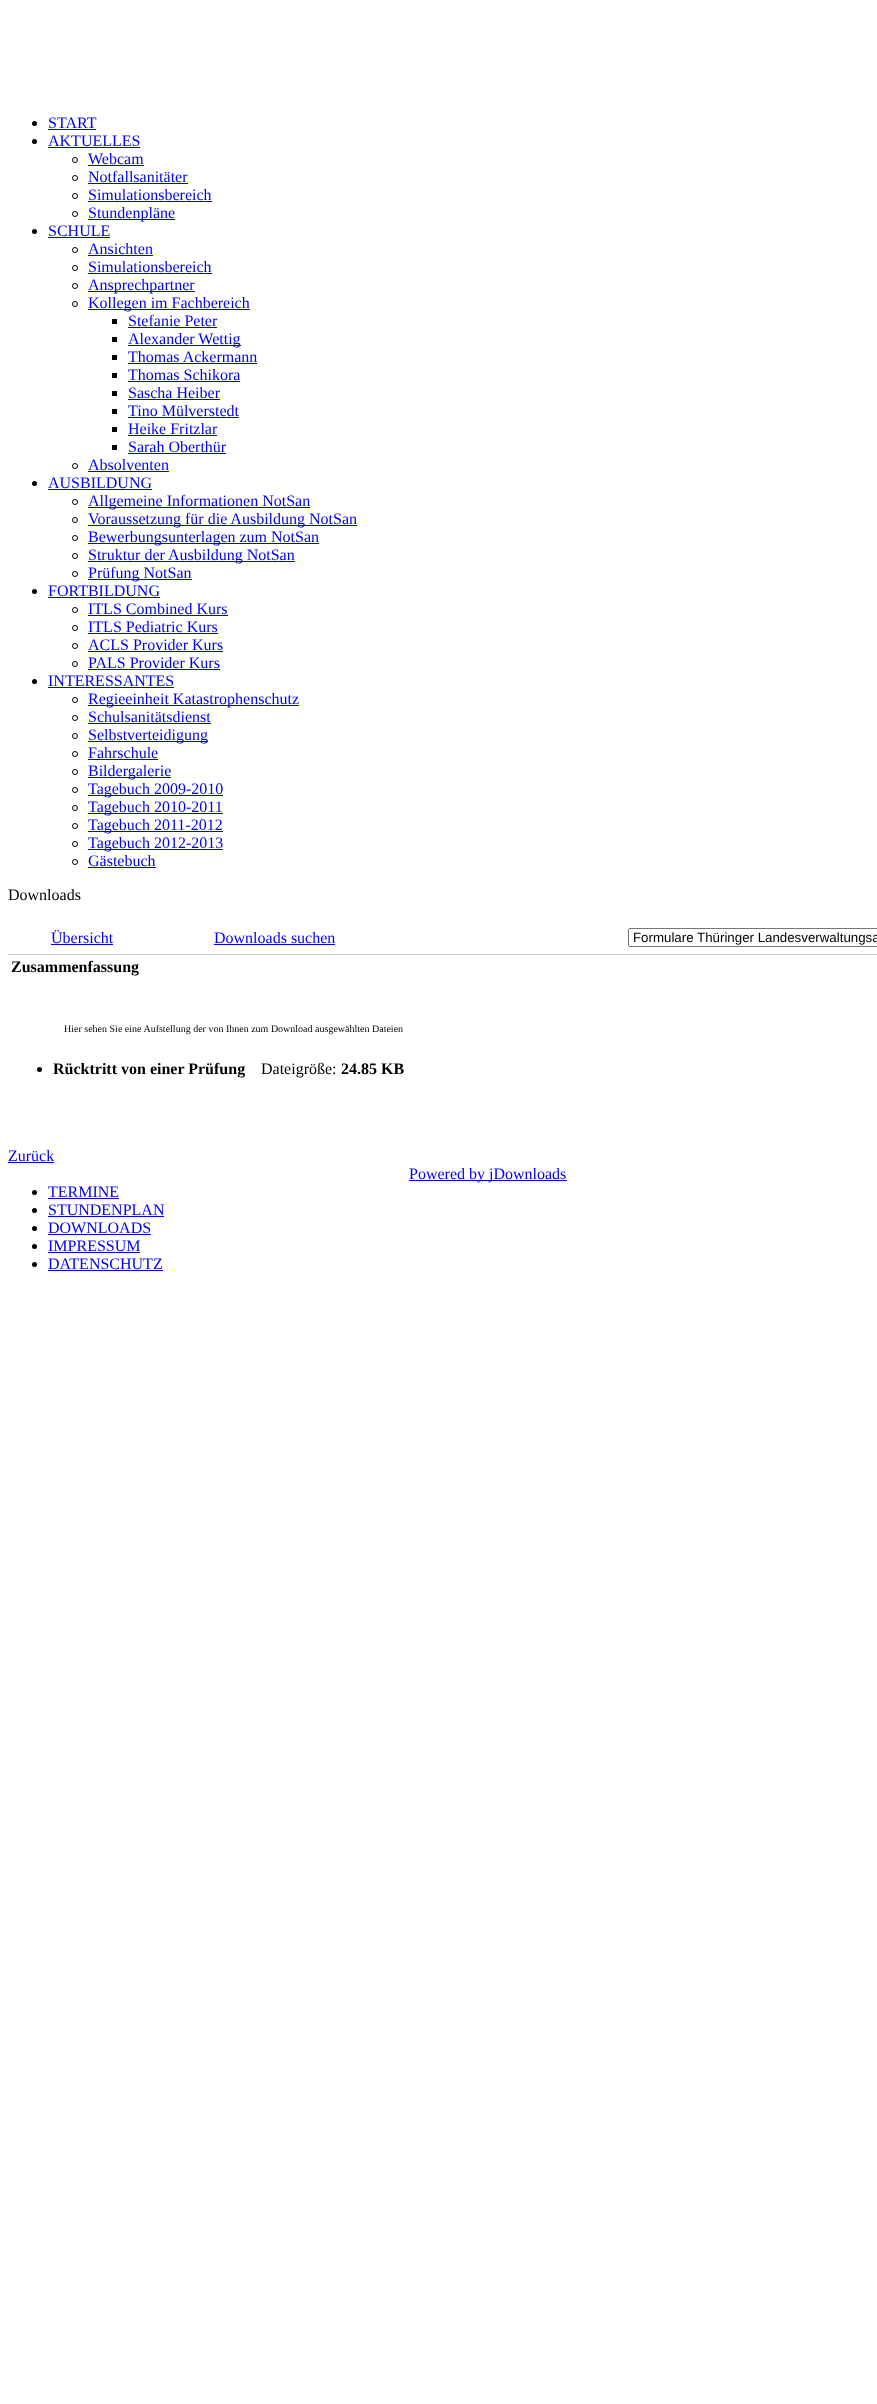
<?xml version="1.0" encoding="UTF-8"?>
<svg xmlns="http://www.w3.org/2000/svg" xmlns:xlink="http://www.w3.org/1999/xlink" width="877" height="2404">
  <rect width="100%" height="100%" fill="#ffffff" />
  <circle cx="34.5" cy="123.5" r="2.5" fill="#000000" />
  <rect x="48" y="129" width="48" height="1" fill="#0000ee" />
  <circle cx="34.5" cy="141.5" r="2.5" fill="#000000" />
  <rect x="48" y="147" width="92" height="1" fill="#0000ee" />
  <circle cx="75" cy="160" r="2.5" fill="none" stroke="#000000" />
  <rect x="88" y="165" width="56" height="1" fill="#0000ee" />
  <circle cx="75" cy="178" r="2.5" fill="none" stroke="#000000" />
  <rect x="88" y="183" width="100" height="1" fill="#0000ee" />
  <circle cx="75" cy="196" r="2.5" fill="none" stroke="#000000" />
  <rect x="88" y="201" width="124" height="1" fill="#0000ee" />
  <circle cx="75" cy="214" r="2.5" fill="none" stroke="#000000" />
  <rect x="88" y="219" width="87" height="1" fill="#0000ee" />
  <circle cx="34.5" cy="231.5" r="2.5" fill="#000000" />
  <rect x="48" y="237" width="62" height="1" fill="#0000ee" />
  <circle cx="75" cy="250" r="2.5" fill="none" stroke="#000000" />
  <rect x="88" y="255" width="65" height="1" fill="#0000ee" />
  <circle cx="75" cy="268" r="2.5" fill="none" stroke="#000000" />
  <rect x="88" y="273" width="124" height="1" fill="#0000ee" />
  <circle cx="75" cy="286" r="2.5" fill="none" stroke="#000000" />
  <rect x="88" y="291" width="107" height="1" fill="#0000ee" />
  <circle cx="75" cy="304" r="2.5" fill="none" stroke="#000000" />
  <rect x="88" y="309" width="162" height="1" fill="#0000ee" />
  <rect x="112" y="319" width="5" height="5" fill="#000000" />
  <rect x="128" y="327" width="89" height="1" fill="#0000ee" />
  <rect x="112" y="337" width="5" height="5" fill="#000000" />
  <rect x="128" y="345" width="113" height="1" fill="#0000ee" />
  <rect x="112" y="355" width="5" height="5" fill="#000000" />
  <rect x="128" y="363" width="129" height="1" fill="#0000ee" />
  <rect x="112" y="373" width="5" height="5" fill="#000000" />
  <rect x="128" y="381" width="112" height="1" fill="#0000ee" />
  <rect x="112" y="391" width="5" height="5" fill="#000000" />
  <rect x="128" y="399" width="92" height="1" fill="#0000ee" />
  <rect x="112" y="409" width="5" height="5" fill="#000000" />
  <rect x="128" y="417" width="111" height="1" fill="#0000ee" />
  <rect x="112" y="427" width="5" height="5" fill="#000000" />
  <rect x="128" y="435" width="89" height="1" fill="#0000ee" />
  <rect x="112" y="445" width="5" height="5" fill="#000000" />
  <rect x="128" y="453" width="98" height="1" fill="#0000ee" />
  <circle cx="75" cy="466" r="2.5" fill="none" stroke="#000000" />
  <rect x="88" y="471" width="81" height="1" fill="#0000ee" />
  <circle cx="34.5" cy="483.5" r="2.5" fill="#000000" />
  <rect x="48" y="489" width="104" height="1" fill="#0000ee" />
  <circle cx="75" cy="502" r="2.5" fill="none" stroke="#000000" />
  <rect x="88" y="507" width="222" height="1" fill="#0000ee" />
  <circle cx="75" cy="520" r="2.5" fill="none" stroke="#000000" />
  <rect x="88" y="525" width="269" height="1" fill="#0000ee" />
  <circle cx="75" cy="538" r="2.5" fill="none" stroke="#000000" />
  <rect x="88" y="543" width="231" height="1" fill="#0000ee" />
  <circle cx="75" cy="556" r="2.5" fill="none" stroke="#000000" />
  <rect x="88" y="561" width="207" height="1" fill="#0000ee" />
  <circle cx="75" cy="574" r="2.5" fill="none" stroke="#000000" />
  <rect x="88" y="579" width="104" height="1" fill="#0000ee" />
  <circle cx="34.5" cy="591.5" r="2.5" fill="#000000" />
  <rect x="48" y="597" width="112" height="1" fill="#0000ee" />
  <circle cx="75" cy="610" r="2.5" fill="none" stroke="#000000" />
  <rect x="88" y="615" width="140" height="1" fill="#0000ee" />
  <circle cx="75" cy="628" r="2.5" fill="none" stroke="#000000" />
  <rect x="88" y="633" width="130" height="1" fill="#0000ee" />
  <circle cx="75" cy="646" r="2.5" fill="none" stroke="#000000" />
  <rect x="88" y="651" width="135" height="1" fill="#0000ee" />
  <circle cx="75" cy="664" r="2.5" fill="none" stroke="#000000" />
  <rect x="88" y="669" width="132" height="1" fill="#0000ee" />
  <circle cx="34.5" cy="681.5" r="2.5" fill="#000000" />
  <rect x="48" y="687" width="126" height="1" fill="#0000ee" />
  <circle cx="75" cy="700" r="2.5" fill="none" stroke="#000000" />
  <rect x="88" y="705" width="211" height="1" fill="#0000ee" />
  <circle cx="75" cy="718" r="2.5" fill="none" stroke="#000000" />
  <rect x="88" y="723" width="123" height="1" fill="#0000ee" />
  <circle cx="75" cy="736" r="2.5" fill="none" stroke="#000000" />
  <rect x="88" y="741" width="120" height="1" fill="#0000ee" />
  <circle cx="75" cy="754" r="2.5" fill="none" stroke="#000000" />
  <rect x="88" y="759" width="70" height="1" fill="#0000ee" />
  <circle cx="75" cy="772" r="2.5" fill="none" stroke="#000000" />
  <rect x="88" y="777" width="83" height="1" fill="#0000ee" />
  <circle cx="75" cy="790" r="2.5" fill="none" stroke="#000000" />
  <rect x="88" y="795" width="135" height="1" fill="#0000ee" />
  <circle cx="75" cy="808" r="2.5" fill="none" stroke="#000000" />
  <rect x="88" y="813" width="135" height="1" fill="#0000ee" />
  <circle cx="75" cy="826" r="2.5" fill="none" stroke="#000000" />
  <rect x="88" y="831" width="135" height="1" fill="#0000ee" />
  <circle cx="75" cy="844" r="2.5" fill="none" stroke="#000000" />
  <rect x="88" y="849" width="135" height="1" fill="#0000ee" />
  <circle cx="75" cy="862" r="2.5" fill="none" stroke="#000000" />
  <rect x="88" y="867" width="68" height="1" fill="#0000ee" />
  <rect x="8" y="954" width="869" height="1" fill="#cccccc" />
  <rect x="51" y="944" width="62" height="1" fill="#0000ee" />
  <rect x="214" y="944" width="121" height="1" fill="#0000ee" />
  <rect x="628.5" y="928.5" width="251" height="18" rx="1.5" fill="none" stroke="#767676" />
  <circle cx="39.5" cy="1069.5" r="2.5" fill="#000000" />
  <rect x="8" y="1162" width="46" height="1" fill="#0000ee" />
  <rect x="409" y="1180" width="158" height="1" fill="#0000ee" />
  <circle cx="34.5" cy="1192.5" r="2.5" fill="#000000" />
  <rect x="48" y="1198" width="71" height="1" fill="#0000ee" />
  <circle cx="34.5" cy="1210.5" r="2.5" fill="#000000" />
  <rect x="48" y="1216" width="116" height="1" fill="#0000ee" />
  <circle cx="34.5" cy="1228.5" r="2.5" fill="#000000" />
  <rect x="48" y="1234" width="103" height="1" fill="#0000ee" />
  <circle cx="34.5" cy="1246.5" r="2.5" fill="#000000" />
  <rect x="48" y="1252" width="92" height="1" fill="#0000ee" />
  <circle cx="34.5" cy="1264.5" r="2.5" fill="#000000" />
  <rect x="48" y="1270" width="115" height="1" fill="#0000ee" />
  <text x="48" y="128" style="font-family: Liberation Serif; font-size: 16px; fill: #0000ee">START</text>
  <text x="48" y="146" style="font-family: Liberation Serif; font-size: 16px; fill: #0000ee">AKTUELLES</text>
  <text x="88" y="164" style="font-family: Liberation Serif; font-size: 16px; fill: #0000ee">Webcam</text>
  <text x="88" y="182" style="font-family: Liberation Serif; font-size: 16px; fill: #0000ee">Notfallsanitäter</text>
  <text x="88" y="200" style="font-family: Liberation Serif; font-size: 16px; fill: #0000ee">Simulationsbereich</text>
  <text x="88" y="218" style="font-family: Liberation Serif; font-size: 16px; fill: #0000ee">Stundenpläne</text>
  <text x="48" y="236" style="font-family: Liberation Serif; font-size: 16px; fill: #0000ee">SCHULE</text>
  <text x="88" y="254" style="font-family: Liberation Serif; font-size: 16px; fill: #0000ee">Ansichten</text>
  <text x="88" y="272" style="font-family: Liberation Serif; font-size: 16px; fill: #0000ee">Simulationsbereich</text>
  <text x="88" y="290" style="font-family: Liberation Serif; font-size: 16px; fill: #0000ee">Ansprechpartner</text>
  <text x="88" y="308" style="font-family: Liberation Serif; font-size: 16px; fill: #0000ee">Kollegen im Fachbereich</text>
  <text x="128" y="326" style="font-family: Liberation Serif; font-size: 16px; fill: #0000ee">Stefanie Peter</text>
  <text x="128" y="344" style="font-family: Liberation Serif; font-size: 16px; fill: #0000ee">Alexander Wettig</text>
  <text x="128" y="362" style="font-family: Liberation Serif; font-size: 16px; fill: #0000ee">Thomas Ackermann</text>
  <text x="128" y="380" style="font-family: Liberation Serif; font-size: 16px; fill: #0000ee">Thomas Schikora</text>
  <text x="128" y="398" style="font-family: Liberation Serif; font-size: 16px; fill: #0000ee">Sascha Heiber</text>
  <text x="128" y="416" style="font-family: Liberation Serif; font-size: 16px; fill: #0000ee">Tino Mülverstedt</text>
  <text x="128" y="434" style="font-family: Liberation Serif; font-size: 16px; fill: #0000ee">Heike Fritzlar</text>
  <text x="128" y="452" style="font-family: Liberation Serif; font-size: 16px; fill: #0000ee">Sarah Oberthür</text>
  <text x="88" y="470" style="font-family: Liberation Serif; font-size: 16px; fill: #0000ee">Absolventen</text>
  <text x="48" y="488" style="font-family: Liberation Serif; font-size: 16px; fill: #0000ee">AUSBILDUNG</text>
  <text x="88" y="506" style="font-family: Liberation Serif; font-size: 16px; fill: #0000ee">Allgemeine Informationen NotSan</text>
  <text x="88" y="524" style="font-family: Liberation Serif; font-size: 16px; fill: #0000ee">Voraussetzung für die Ausbildung NotSan</text>
  <text x="88" y="542" style="font-family: Liberation Serif; font-size: 16px; fill: #0000ee">Bewerbungsunterlagen zum NotSan</text>
  <text x="88" y="560" style="font-family: Liberation Serif; font-size: 16px; fill: #0000ee">Struktur der Ausbildung NotSan</text>
  <text x="88" y="578" style="font-family: Liberation Serif; font-size: 16px; fill: #0000ee">Prüfung NotSan</text>
  <text x="48" y="596" style="font-family: Liberation Serif; font-size: 16px; fill: #0000ee">FORTBILDUNG</text>
  <text x="88" y="614" style="font-family: Liberation Serif; font-size: 16px; fill: #0000ee">ITLS Combined Kurs</text>
  <text x="88" y="632" style="font-family: Liberation Serif; font-size: 16px; fill: #0000ee">ITLS Pediatric Kurs</text>
  <text x="88" y="650" style="font-family: Liberation Serif; font-size: 16px; fill: #0000ee">ACLS Provider Kurs</text>
  <text x="88" y="668" style="font-family: Liberation Serif; font-size: 16px; fill: #0000ee">PALS Provider Kurs</text>
  <text x="48" y="686" style="font-family: Liberation Serif; font-size: 16px; fill: #0000ee">INTERESSANTES</text>
  <text x="88" y="704" style="font-family: Liberation Serif; font-size: 16px; fill: #0000ee">Regieeinheit Katastrophenschutz</text>
  <text x="88" y="722" style="font-family: Liberation Serif; font-size: 16px; fill: #0000ee">Schulsanitätsdienst</text>
  <text x="88" y="740" style="font-family: Liberation Serif; font-size: 16px; fill: #0000ee">Selbstverteidigung</text>
  <text x="88" y="758" style="font-family: Liberation Serif; font-size: 16px; fill: #0000ee">Fahrschule</text>
  <text x="88" y="776" style="font-family: Liberation Serif; font-size: 16px; fill: #0000ee">Bildergalerie</text>
  <text x="88" y="794" style="font-family: Liberation Serif; font-size: 16px; fill: #0000ee">Tagebuch 2009-2010</text>
  <text x="88" y="812" style="font-family: Liberation Serif; font-size: 16px; fill: #0000ee">Tagebuch 2010-2011</text>
  <text x="88" y="830" style="font-family: Liberation Serif; font-size: 16px; fill: #0000ee">Tagebuch 2011-2012</text>
  <text x="88" y="848" style="font-family: Liberation Serif; font-size: 16px; fill: #0000ee">Tagebuch 2012-2013</text>
  <text x="88" y="866" style="font-family: Liberation Serif; font-size: 16px; fill: #0000ee">Gästebuch</text>
  <text x="8" y="900" style="font-family: Liberation Serif; font-size: 16px; fill: #000000">Downloads</text>
  <text x="51" y="943" style="font-family: Liberation Serif; font-size: 16px; fill: #0000ee">Übersicht</text>
  <text x="214" y="943" style="font-family: Liberation Serif; font-size: 16px; fill: #0000ee">Downloads suchen</text>
  <text x="633" y="942" style="font-family: Liberation Sans; font-size: 13.3px; fill: #000000">Formulare Thüringer Landesverwaltungsa</text>
  <text x="11" y="972" style="font-family: Liberation Serif; font-size: 16px; font-weight: bold; fill: #000000">Zusammenfassung</text>
  <text x="64" y="1032" style="font-family: Liberation Serif; font-size: 10px; fill: #000000">Hier sehen Sie eine Aufstellung der von Ihnen zum Download ausgewählten Dateien</text>
  <text x="53" y="1074" style="font-family: Liberation Serif; font-size: 16px; font-weight: bold; fill: #000000">Rücktritt von einer Prüfung</text>
  <text x="261" y="1074" style="font-family: Liberation Serif; font-size: 16px; fill: #000000">Dateigröße:</text>
  <text x="341" y="1074" style="font-family: Liberation Serif; font-size: 16px; font-weight: bold; fill: #000000">24.85 KB</text>
  <text x="8" y="1161" style="font-family: Liberation Serif; font-size: 16px; fill: #0000ee">Zurück</text>
  <text x="409" y="1179" style="font-family: Liberation Serif; font-size: 16px; fill: #0000ee">Powered by jDownloads</text>
  <text x="48" y="1197" style="font-family: Liberation Serif; font-size: 16px; fill: #0000ee">TERMINE</text>
  <text x="48" y="1215" style="font-family: Liberation Serif; font-size: 16px; fill: #0000ee">STUNDENPLAN</text>
  <text x="48" y="1233" style="font-family: Liberation Serif; font-size: 16px; fill: #0000ee">DOWNLOADS</text>
  <text x="48" y="1251" style="font-family: Liberation Serif; font-size: 16px; fill: #0000ee">IMPRESSUM</text>
  <text x="48" y="1269" style="font-family: Liberation Serif; font-size: 16px; fill: #0000ee">DATENSCHUTZ</text>
</svg>
